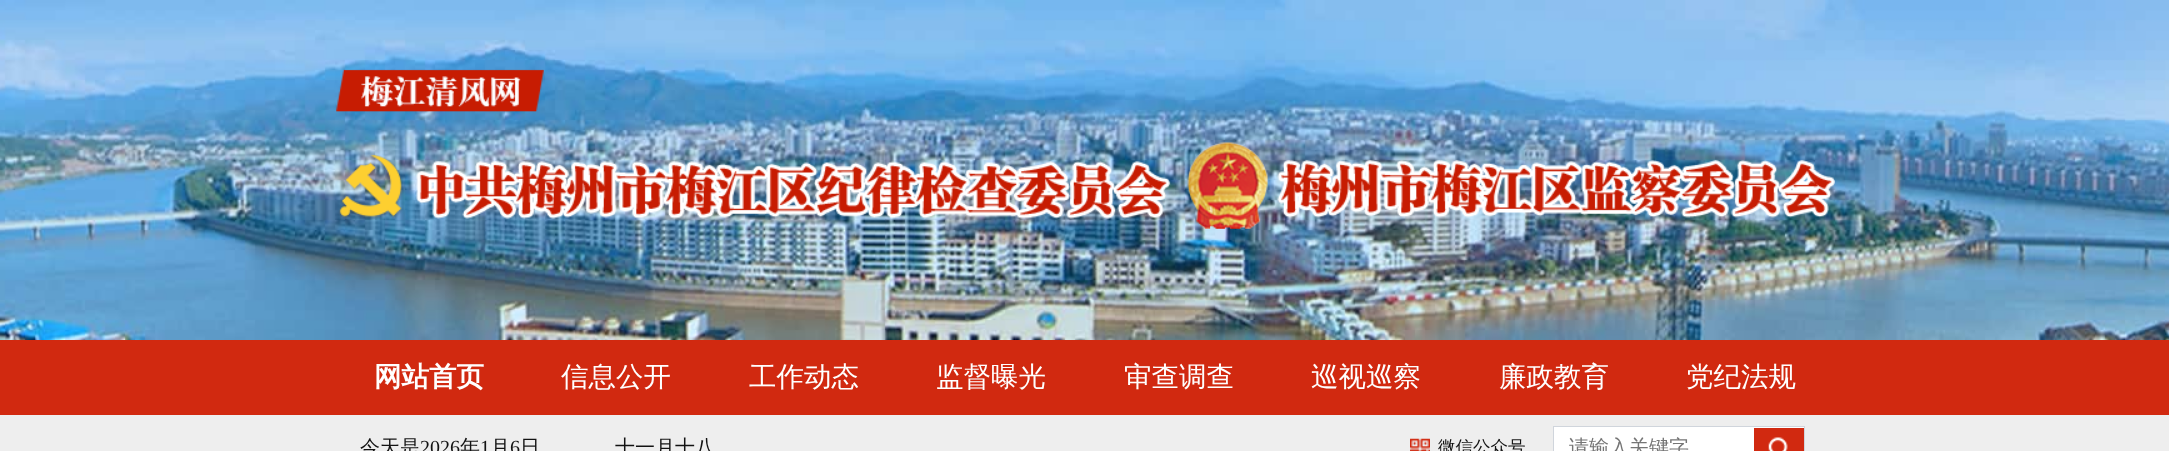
<?xml version="1.0" encoding="UTF-8"?>
<svg xmlns="http://www.w3.org/2000/svg" xmlns:xlink="http://www.w3.org/1999/xlink" width="2169" height="451">
  <rect width="100%" height="100%" fill="#ffffff" />
  <image x="0" y="0" width="2169" height="340" xlink:href="image1.png" />
  <image x="336" y="69" width="1499" height="160" xlink:href="image2.png" />
  <rect y="340" width="2169" height="75" fill="#d12910" />
  <rect y="415" width="2169" height="36" fill="#eeeeee" />
  <image x="1410" y="438" width="20" height="13" xlink:href="image3.png" />
  <rect x="1553.5" y="426.5" width="251" height="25" fill="#ffffff" stroke="#d0d5dc" />
  <rect x="1754" y="428" width="50" height="23" fill="#d12910" />
  <image x="1768" y="437" width="20" height="14" xlink:href="image4.png" />
  <text x="374" y="386" style="font-family: WenQuanYi Zen Hei; font-size: 27.5px; font-weight: bold; fill: #ffffff">网站首页</text>
  <text x="561" y="386" style="font-family: WenQuanYi Zen Hei; font-size: 27.5px; font-weight: 500; fill: #ffffff">信息公开</text>
  <text x="749" y="386" style="font-family: WenQuanYi Zen Hei; font-size: 27.5px; font-weight: 500; fill: #ffffff">工作动态</text>
  <text x="936" y="386" style="font-family: WenQuanYi Zen Hei; font-size: 27.5px; font-weight: 500; fill: #ffffff">监督曝光</text>
  <text x="1124" y="386" style="font-family: WenQuanYi Zen Hei; font-size: 27.5px; font-weight: 500; fill: #ffffff">审查调查</text>
  <text x="1311" y="386" style="font-family: WenQuanYi Zen Hei; font-size: 27.5px; font-weight: 500; fill: #ffffff">巡视巡察</text>
  <text x="1499" y="386" style="font-family: WenQuanYi Zen Hei; font-size: 27.5px; font-weight: 500; fill: #ffffff">廉政教育</text>
  <text x="1686" y="386" style="font-family: WenQuanYi Zen Hei; font-size: 27.5px; font-weight: 500; fill: #ffffff">党纪法规</text>
  <text x="360" y="454" style="font-family: WenQuanYi Zen Hei; font-size: 20px; font-weight: 500; fill: #121212">今天是</text>
  <text x="420" y="454" style="font-family: Liberation Serif; font-size: 20px; fill: #121212">2026</text>
  <text x="460" y="454" style="font-family: WenQuanYi Zen Hei; font-size: 20px; font-weight: 500; fill: #121212">年</text>
  <text x="480" y="454" style="font-family: Liberation Serif; font-size: 20px; fill: #121212">1</text>
  <text x="490" y="454" style="font-family: WenQuanYi Zen Hei; font-size: 20px; font-weight: 500; fill: #121212">月</text>
  <text x="510" y="454" style="font-family: Liberation Serif; font-size: 20px; fill: #121212">6</text>
  <text x="520" y="454" style="font-family: WenQuanYi Zen Hei; font-size: 20px; font-weight: 500; fill: #121212">日</text>
  <text x="615" y="454" style="font-family: WenQuanYi Zen Hei; font-size: 20px; font-weight: 500; fill: #121212">十一月十八</text>
  <text x="1438" y="453" style="font-family: WenQuanYi Zen Hei; font-size: 17.5px; font-weight: 500; fill: #121212">微信公众号</text>
  <text x="1569" y="454" style="font-family: WenQuanYi Zen Hei; font-size: 20px; font-weight: 500; fill: #757575">请输入关键字</text>
</svg>
